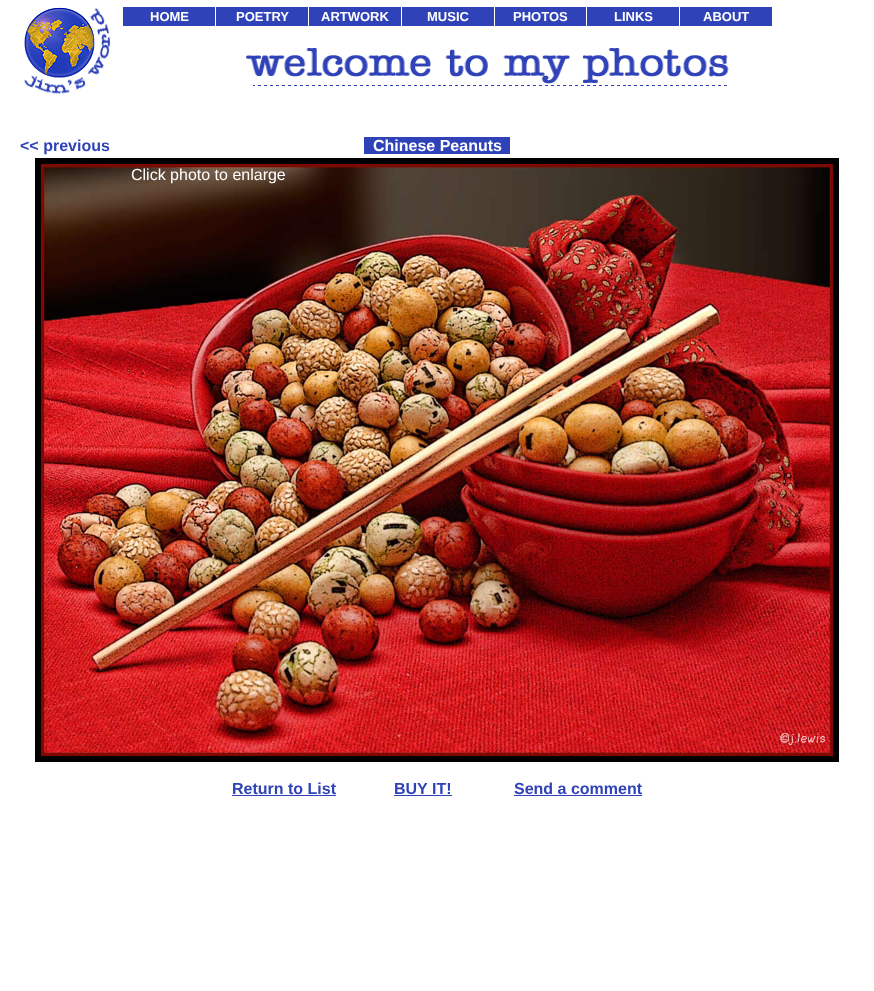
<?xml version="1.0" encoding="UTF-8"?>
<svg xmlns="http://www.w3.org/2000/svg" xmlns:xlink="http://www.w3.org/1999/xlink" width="874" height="991">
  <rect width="100%" height="100%" fill="#ffffff" />
  <image x="24" y="7" width="87" height="87" xlink:href="image1.png" />
  <rect x="123" y="7" width="92" height="19" fill="#2f42b8" />
  <rect x="216" y="7" width="92" height="19" fill="#2f42b8" />
  <rect x="309" y="7" width="92" height="19" fill="#2f42b8" />
  <rect x="402" y="7" width="92" height="19" fill="#2f42b8" />
  <rect x="495" y="7" width="91" height="19" fill="#2f42b8" />
  <rect x="587" y="7" width="92" height="19" fill="#2f42b8" />
  <rect x="680" y="7" width="92" height="19" fill="#2f42b8" />
  <image x="246" y="48" width="483" height="36" xlink:href="image2.png" />
  <image x="253" y="85" width="474" height="1" xlink:href="image3.png" />
  <rect x="364" y="137" width="146" height="17" fill="#2f42b8" />
  <rect x="36" y="159" width="802" height="602" fill="none" stroke="#000000" stroke-width="2" />
  <image x="37" y="160" width="800" height="600" xlink:href="image4.png" />
  <rect x="232" y="795" width="104" height="1" fill="#2f42b8" />
  <rect x="394" y="795" width="58" height="1" fill="#2f42b8" />
  <rect x="514" y="795" width="128" height="1" fill="#2f42b8" />
  <text x="150" y="21" style="font-family: Liberation Sans; font-size: 13px; font-weight: bold; fill: #ffffff">HOME</text>
  <text x="236" y="21" style="font-family: Liberation Sans; font-size: 13px; font-weight: bold; fill: #ffffff">POETRY</text>
  <text x="321" y="21" style="font-family: Liberation Sans; font-size: 13px; font-weight: bold; fill: #ffffff">ARTWORK</text>
  <text x="427" y="21" style="font-family: Liberation Sans; font-size: 13px; font-weight: bold; fill: #ffffff">MUSIC</text>
  <text x="513" y="21" style="font-family: Liberation Sans; font-size: 13px; font-weight: bold; fill: #ffffff">PHOTOS</text>
  <text x="614" y="21" style="font-family: Liberation Sans; font-size: 13px; font-weight: bold; fill: #ffffff">LINKS</text>
  <text x="703" y="21" style="font-family: Liberation Sans; font-size: 13px; font-weight: bold; fill: #ffffff">ABOUT</text>
  <text x="20" y="151" style="font-family: Liberation Sans; font-size: 16px; font-weight: bold; fill: #2f42b8">&lt;&lt; previous</text>
  <text x="373" y="151" style="font-family: Liberation Sans; font-size: 16px; font-weight: bold; fill: #ffffff">Chinese Peanuts</text>
  <text x="131" y="180" style="font-family: Liberation Sans; font-size: 16px; fill: #ffffff">Click photo to enlarge</text>
  <text x="232" y="794" style="font-family: Liberation Sans; font-size: 16px; font-weight: bold; fill: #2f42b8">Return to List</text>
  <text x="394" y="794" style="font-family: Liberation Sans; font-size: 16px; font-weight: bold; fill: #2f42b8">BUY IT!</text>
  <text x="514" y="794" style="font-family: Liberation Sans; font-size: 16px; font-weight: bold; fill: #2f42b8">Send a comment</text>
</svg>
